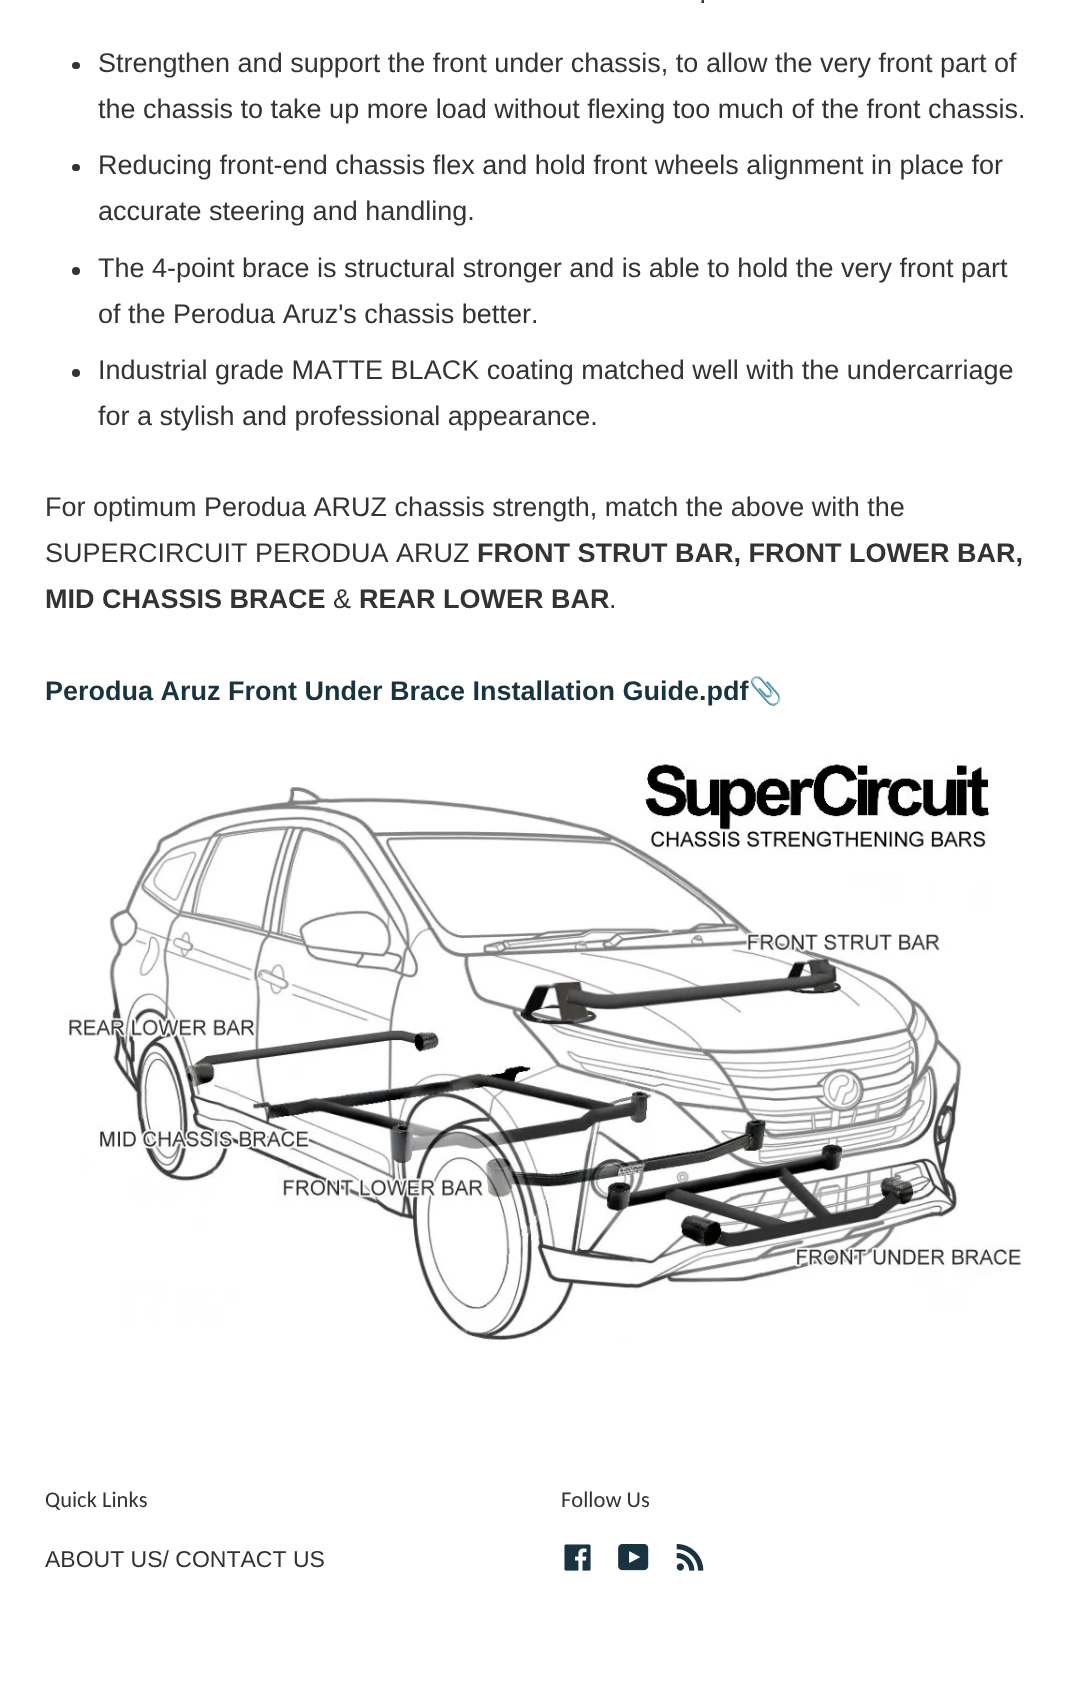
<?xml version="1.0" encoding="UTF-8"?>
<svg xmlns="http://www.w3.org/2000/svg" xmlns:xlink="http://www.w3.org/1999/xlink" width="1077" height="1699">
  <style>*{font-kerning:none!important;font-variant-ligatures:none!important}</style>
  <rect width="100%" height="100%" fill="#ffffff" />
  <rect x="72" y="62" width="8" height="7" rx="3.5" fill="#333333" />
  <rect x="72" y="164" width="8" height="7" rx="3.5" fill="#333333" />
  <circle cx="76" cy="271" r="4" fill="#333333" />
  <circle cx="76" cy="373" r="4" fill="#333333" />
  <image x="67" y="759" width="956" height="585" xlink:href="image1.png" />
  <image x="564" y="1544" width="27" height="27" xlink:href="image2.png" />
  <image x="618" y="1544" width="31" height="27" xlink:href="image3.png" />
  <image x="676" y="1544" width="28" height="27" xlink:href="image4.png" />
  <text x="699" y="3" style="font-family: Liberation Sans; font-size: 27px; fill: #333333">.</text>
  <text x="98" y="72" style="font-family: Liberation Sans; font-size: 27px; fill: #333333">Strengthen and support the front under chassis, to allow the very front part of</text>
  <text x="98" y="118" style="font-family: Liberation Sans; font-size: 27px; fill: #333333">the chassis to take up more load without flexing too much of the front chassis.</text>
  <text x="98" y="174" style="font-family: Liberation Sans; font-size: 27px; fill: #333333">Reducing front-end chassis flex and hold front wheels alignment in place for</text>
  <text x="98" y="220" style="font-family: Liberation Sans; font-size: 27px; fill: #333333">accurate steering and handling.</text>
  <text x="98" y="277" style="font-family: Liberation Sans; font-size: 27px; fill: #333333">The 4-point brace is structural stronger and is able to hold the very front part</text>
  <text x="98" y="323" style="font-family: Liberation Sans; font-size: 27px; fill: #333333">of the Perodua Aruz's chassis better.</text>
  <text x="98" y="379" style="font-family: Liberation Sans; font-size: 27px; fill: #333333">Industrial grade MATTE BLACK coating matched well with the undercarriage</text>
  <text x="98" y="425" style="font-family: Liberation Sans; font-size: 27px; fill: #333333">for a stylish and professional appearance.</text>
  <text x="45" y="516" style="font-family: Liberation Sans; font-size: 27px; fill: #333333">For optimum Perodua ARUZ chassis strength, match the above with the</text>
  <text x="45" y="562" style="font-family: Liberation Sans; font-size: 27px; fill: #333333">SUPERCIRCUIT PERODUA ARUZ</text>
  <text x="477" y="562" style="font-family: Liberation Sans; font-size: 27px; font-weight: bold; fill: #333333">FRONT STRUT BAR, FRONT LOWER BAR,</text>
  <text x="45" y="608" style="font-family: Liberation Sans; font-size: 27px; font-weight: bold; fill: #333333">MID CHASSIS BRACE</text>
  <text x="333" y="608" style="font-family: Liberation Sans; font-size: 27px; fill: #333333">&amp;</text>
  <text x="359" y="608" style="font-family: Liberation Sans; font-size: 27px; font-weight: bold; fill: #333333">REAR LOWER BAR</text>
  <text x="609" y="608" style="font-family: Liberation Sans; font-size: 27px; fill: #333333">.</text>
  <text x="45" y="700" style="font-family: Liberation Sans; font-size: 27px; font-weight: bold; fill: #193441">Perodua Aruz Front Under Brace Installation Guide.pdf</text>
  <text x="749" y="700" style="font-family: Noto Color Emoji; font-size: 27px; fill: #193441">📎</text>
  <text x="45" y="1507" style="font-family: Carlito; font-size: 22.5px; fill: #333333">Quick Links</text>
  <text x="45" y="1567" style="font-family: Liberation Sans; font-size: 23px; fill: #333333">ABOUT US/ CONTACT US</text>
  <text x="561" y="1507" style="font-family: Carlito; font-size: 22.5px; fill: #333333">Follow Us</text>
</svg>
